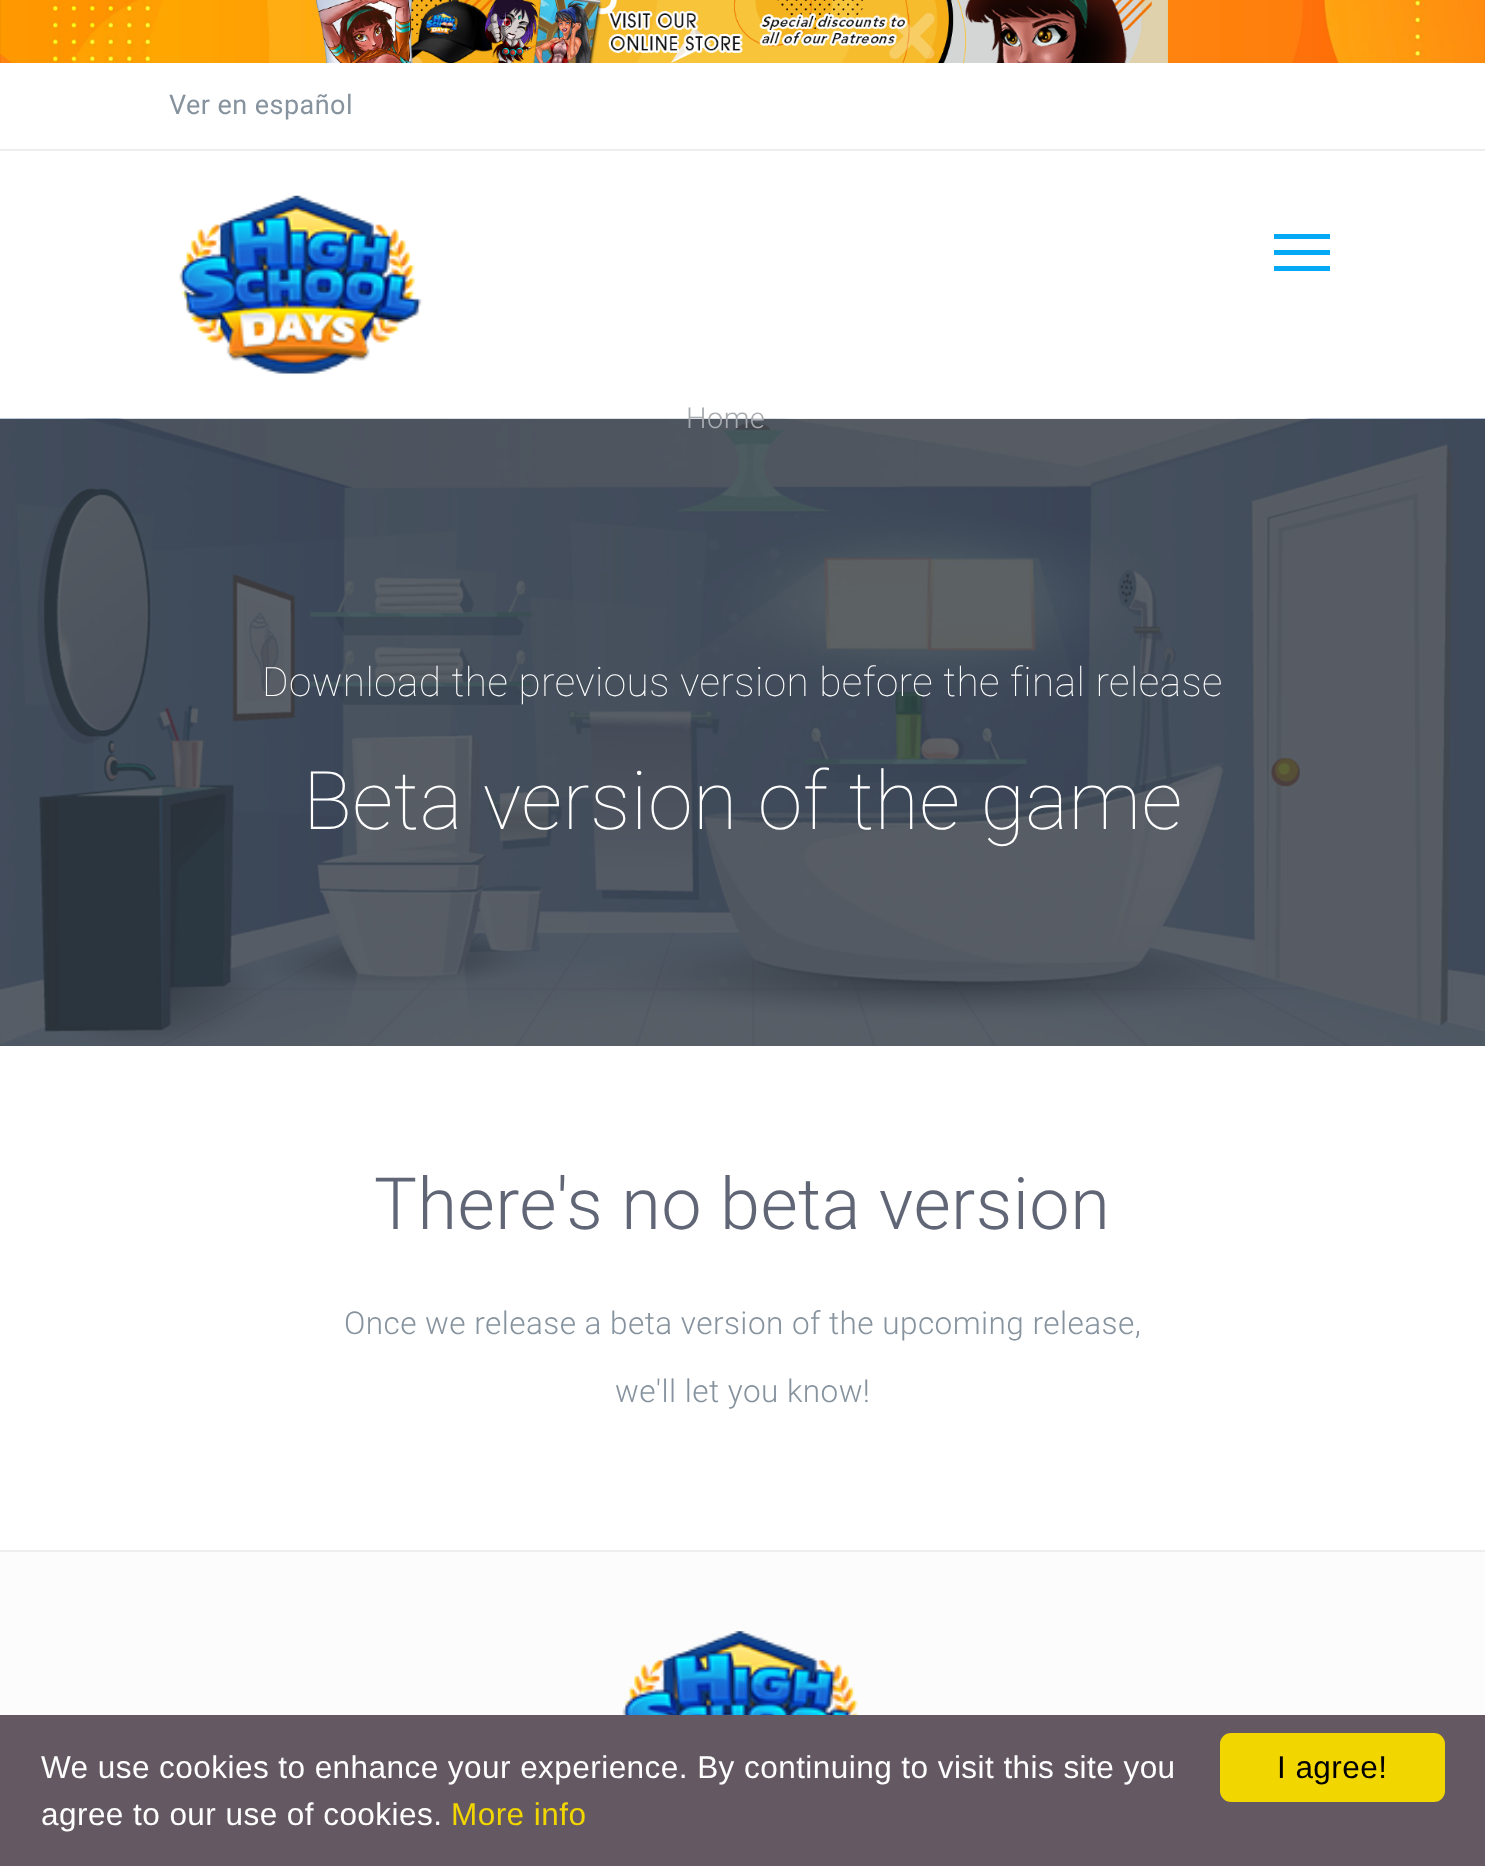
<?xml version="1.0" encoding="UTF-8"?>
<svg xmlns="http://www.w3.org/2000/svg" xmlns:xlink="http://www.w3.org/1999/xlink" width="1485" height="1866">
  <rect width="100%" height="100%" fill="#ffffff" />
  <image x="0" y="0" width="1485" height="63" xlink:href="image1.png" />
  <rect y="149" width="1485" height="2" fill="#eeeeee" />
  <image x="179" y="195" width="243" height="179" xlink:href="image2.png" />
  <rect x="1274" y="250" width="56" height="5" fill="#03a9f4" />
  <rect x="1274" y="234" width="56" height="5" fill="#03a9f4" />
  <rect x="1274" y="266" width="56" height="5" fill="#03a9f4" />
  <image x="0" y="418" width="1485" height="628" xlink:href="image3.png" />
  <rect y="1552" width="1485" height="163" fill="#fcfcfc" />
  <rect y="1550" width="1485" height="2" fill="#eeeeee" />
  <image x="622" y="1631" width="236" height="84" xlink:href="image4.png" />
  <rect y="1715" width="1485" height="151" fill="#645862" />
  <rect x="1220" y="1733" width="225" height="69" rx="11" fill="#f1d600" />
  <text x="169" y="114" style="font-family: Roboto; font-size: 27px; letter-spacing: 0.45px; fill: #86939e">Ver en español</text>
  <text x="686" y="428" style="font-family: Roboto; font-size: 29px; font-weight: 300; letter-spacing: 0.45px; fill: #a7aaaf">Home</text>
  <text x="262" y="696" style="font-family: Roboto; font-size: 40.5px; font-weight: 100; letter-spacing: 0.45px; fill: #ffffff">Download the previous version before the final release</text>
  <text x="303" y="829" style="font-family: Roboto; font-size: 81px; font-weight: 100; letter-spacing: 0.45px; fill: #ffffff">Beta version of the game</text>
  <text x="374" y="1229" style="font-family: Roboto; font-size: 72px; font-weight: 300; letter-spacing: 0.45px; fill: #606676">There's no beta version</text>
  <text x="344" y="1334" style="font-family: Roboto; font-size: 31.5px; font-weight: 300; letter-spacing: 0.45px; fill: #86939e">Once we release a beta version of the upcoming release,</text>
  <text x="615" y="1402" style="font-family: Roboto; font-size: 31.5px; font-weight: 300; letter-spacing: 0.45px; fill: #86939e">we'll let you know!</text>
  <text x="41" y="1778" style="font-family: Liberation Sans; font-size: 31.5px; letter-spacing: 0.45px; fill: #ffffff">We use cookies to enhance your experience. By continuing to visit this site you</text>
  <text x="41" y="1825" style="font-family: Liberation Sans; font-size: 31.5px; letter-spacing: 0.45px; fill: #ffffff">agree to our use of cookies.</text>
  <text x="451" y="1825" style="font-family: Liberation Sans; font-size: 31.5px; letter-spacing: 0.45px; fill: #f1d600">More info</text>
  <text x="1277" y="1778" style="font-family: Liberation Sans; font-size: 31.5px; letter-spacing: 0.45px; fill: #000000">I agree!</text>
</svg>
